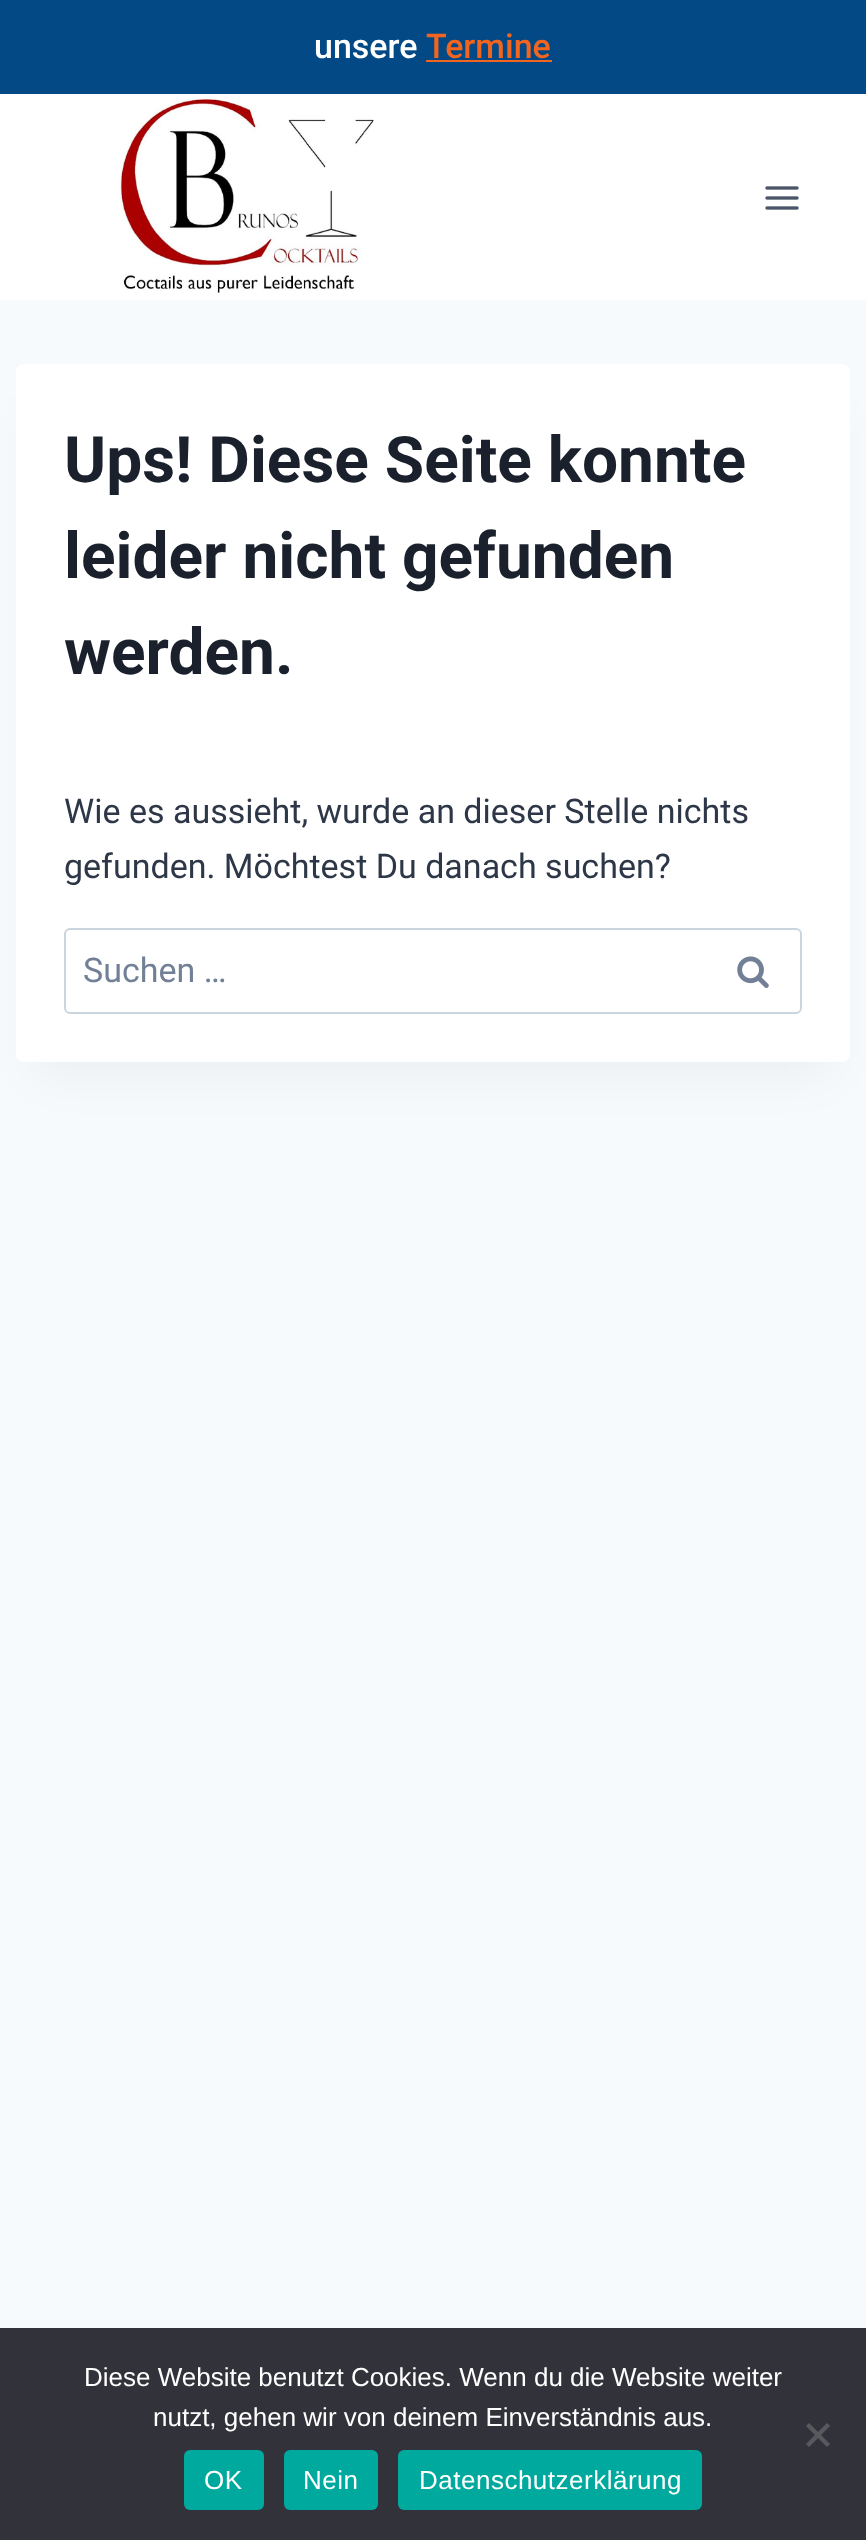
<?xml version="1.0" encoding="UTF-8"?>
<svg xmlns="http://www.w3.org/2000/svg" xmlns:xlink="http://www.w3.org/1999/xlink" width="866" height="2540">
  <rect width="100%" height="100%" fill="#f7fafc" />
  <rect width="866" height="94" fill="#024985" />
  <rect x="426" y="60" width="126" height="2" fill="#f16521" />
  <rect y="94" width="866" height="206" fill="#ffffff" />
  <image x="119" y="99" width="255" height="194" xlink:href="image1.png" />
  <image x="765" y="186" width="34" height="24" xlink:href="image2.png" />
  <rect x="36" y="414" width="794" height="658" fill="#000000" fill-opacity="0.05" filter="blur(25px)" />
  <rect x="16" y="364" width="834" height="698" rx="8" fill="#ffffff" />
  <rect x="65" y="929" width="736" height="84" rx="5" fill="none" stroke="#cbd5e0" stroke-width="2" />
  <image x="737" y="956" width="32" height="32" xlink:href="image3.png" />
  <rect y="2328" width="866" height="212" fill="#32323a" />
  <path d="M 827 2423 l 3 3 l -21 21 l -3 -3 z" fill="#59595d" />
  <path d="M 806 2426 l 3 -3 l 21 21 l -3 3 z" fill="#59595d" />
  <rect x="184" y="2450" width="80" height="60" rx="6" fill="#00a99d" />
  <rect x="284" y="2450" width="94" height="60" rx="6" fill="#00a99d" />
  <rect x="398" y="2450" width="304" height="60" rx="6" fill="#00a99d" />
  <text x="314" y="58" style="font-family: Roboto; font-size: 34px; font-weight: 500; fill: #ffffff">unsere</text>
  <text x="426" y="58" style="font-family: Roboto; font-size: 34px; font-weight: 500; fill: #f16521">Termine</text>
  <text x="64" y="482" style="font-family: Roboto; font-size: 64px; font-weight: bold; fill: #1a202c">Ups! Diese Seite konnte</text>
  <text x="64" y="578" style="font-family: Roboto; font-size: 64px; font-weight: bold; fill: #1a202c">leider nicht gefunden</text>
  <text x="64" y="674" style="font-family: Roboto; font-size: 64px; font-weight: bold; fill: #1a202c">werden.</text>
  <text x="64" y="823" style="font-family: Roboto; font-size: 34px; fill: #2d3748">Wie es aussieht, wurde an dieser Stelle nichts</text>
  <text x="64" y="878" style="font-family: Roboto; font-size: 34px; fill: #2d3748">gefunden. Möchtest Du danach suchen?</text>
  <text x="83" y="982" style="font-family: Roboto; font-size: 34px; fill: #718096">Suchen …</text>
  <text x="84" y="2386" style="font-family: Liberation Sans; font-size: 26px; fill: #ffffff">Diese Website benutzt Cookies. Wenn du die Website weiter</text>
  <text x="153" y="2426" style="font-family: Liberation Sans; font-size: 26px; fill: #ffffff">nutzt, gehen wir von deinem Einverständnis aus.</text>
  <text x="204" y="2489" style="font-family: Liberation Sans; font-size: 26px; letter-spacing: 0.5px; fill: #ffffff">OK</text>
  <text x="303" y="2489" style="font-family: Liberation Sans; font-size: 26px; letter-spacing: 0.5px; fill: #ffffff">Nein</text>
  <text x="419" y="2489" style="font-family: Liberation Sans; font-size: 26px; letter-spacing: 0.5px; fill: #ffffff">Datenschutzerklärung</text>
</svg>
